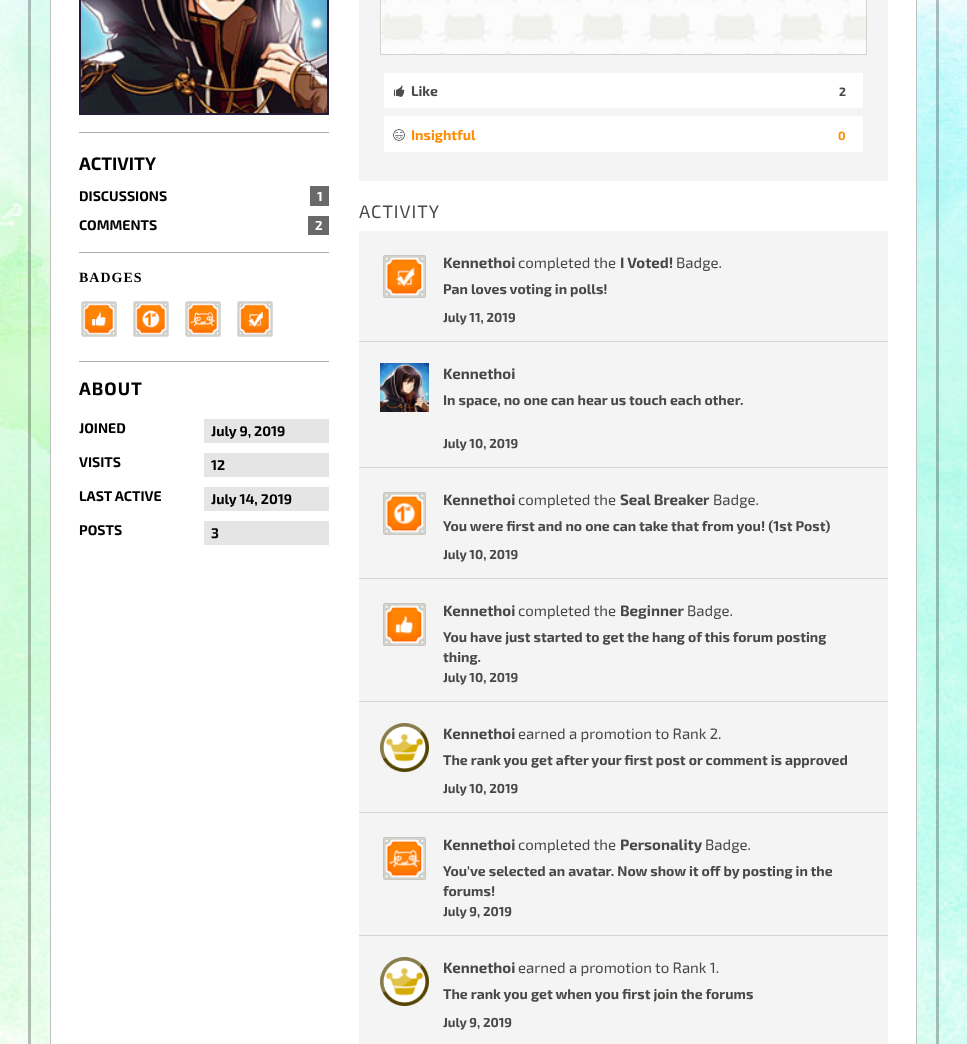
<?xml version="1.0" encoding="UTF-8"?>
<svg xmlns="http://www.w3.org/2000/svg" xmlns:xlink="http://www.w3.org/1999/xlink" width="967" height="1044">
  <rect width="100%" height="100%" fill="#ffffff" />
  <image x="0" y="0" width="967" height="1044" xlink:href="image1.png" />
  <image x="28" y="0" width="911" height="1044" xlink:href="image2.png" />
  <rect x="50.5" y="-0.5" width="866" height="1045" fill="#ffffff" stroke="#bfbfbf" />
  <rect x="80" y="-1" width="248" height="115" fill="none" stroke="#251d39" stroke-width="2" />
  <image x="81" y="0" width="246" height="113" xlink:href="image3.png" />
  <rect x="79" y="132" width="250" height="1" fill="#aeaca5" />
  <rect x="310" y="186" width="19" height="20" fill="#696969" />
  <rect x="308" y="216" width="21" height="19" fill="#696969" />
  <rect x="79" y="252" width="250" height="1" fill="#aeaca5" />
  <image x="81" y="301" width="36" height="36" xlink:href="image4.png" />
  <image x="133" y="301" width="36" height="36" xlink:href="image5.png" />
  <image x="185" y="301" width="36" height="36" xlink:href="image6.png" />
  <image x="237" y="301" width="36" height="36" xlink:href="image7.png" />
  <rect x="79" y="361" width="250" height="1" fill="#aeaca5" />
  <rect x="204" y="419" width="125" height="24" fill="#e5e5e5" />
  <rect x="204" y="453" width="125" height="24" fill="#e5e5e5" />
  <rect x="204" y="487" width="125" height="24" fill="#e5e5e5" />
  <rect x="204" y="521" width="125" height="24" fill="#e5e5e5" />
  <rect x="359" width="529" height="181" fill="#f4f4f4" />
  <image x="381" y="0" width="485" height="54" xlink:href="image8.png" />
  <rect x="380.5" y="-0.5" width="486" height="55" fill="none" stroke="#d4d4cd" />
  <rect x="384" y="73" width="479" height="35" fill="#ffffff" />
  <image x="393" y="85" width="12" height="12" xlink:href="image9.png" />
  <rect x="384" y="116" width="479" height="36" fill="#ffffff" />
  <image x="393" y="129" width="12" height="12" xlink:href="image10.png" />
  <rect x="359" y="231" width="529" height="813" fill="#f4f4f4" />
  <rect x="359" y="341" width="529" height="1" fill="#d4d4cd" />
  <image x="383" y="255" width="43" height="43" xlink:href="image11.png" />
  <rect x="359" y="467" width="529" height="1" fill="#d4d4cd" />
  <image x="380" y="363" width="49" height="49" xlink:href="image12.png" />
  <rect x="359" y="578" width="529" height="1" fill="#d4d4cd" />
  <image x="383" y="492" width="43" height="43" xlink:href="image13.png" />
  <rect x="359" y="701" width="529" height="1" fill="#d4d4cd" />
  <image x="383" y="603" width="43" height="43" xlink:href="image14.png" />
  <rect x="359" y="812" width="529" height="1" fill="#d4d4cd" />
  <image x="380" y="723" width="49" height="49" xlink:href="image15.png" />
  <rect x="359" y="935" width="529" height="1" fill="#d4d4cd" />
  <image x="383" y="837" width="43" height="43" xlink:href="image16.png" />
  <image x="380" y="957" width="49" height="49" xlink:href="image15.png" />
  <text x="79" y="170" style="font-family: 'Exo 2'; font-size: 18px; font-weight: bold; fill: #000000">ACTIVITY</text>
  <text x="79" y="201" style="font-family: 'Exo 2'; font-size: 14px; font-weight: bold; fill: #000000">DISCUSSIONS</text>
  <text x="317" y="201" style="font-family: 'Exo 2'; font-size: 13px; font-weight: bold; fill: #ffffff">1</text>
  <text x="79" y="230" style="font-family: 'Exo 2'; font-size: 14px; font-weight: bold; fill: #000000">COMMENTS</text>
  <text x="315" y="230" style="font-family: 'Exo 2'; font-size: 13px; font-weight: bold; fill: #ffffff">2</text>
  <text x="79" y="282" style="font-family: Liberation Serif; font-size: 14px; font-weight: bold; letter-spacing: 1px; fill: #000000">BADGES</text>
  <text x="79" y="395" style="font-family: 'Exo 2'; font-size: 18px; font-weight: bold; letter-spacing: 1px; fill: #000000">ABOUT</text>
  <text x="79" y="433" style="font-family: 'Exo 2'; font-size: 14px; font-weight: bold; fill: #000000">JOINED</text>
  <text x="211" y="436" style="font-family: 'Exo 2'; font-size: 14px; font-weight: bold; fill: #000000">July 9, 2019</text>
  <text x="79" y="467" style="font-family: 'Exo 2'; font-size: 14px; font-weight: bold; fill: #000000">VISITS</text>
  <text x="211" y="470" style="font-family: 'Exo 2'; font-size: 14px; font-weight: bold; fill: #000000">12</text>
  <text x="79" y="501" style="font-family: 'Exo 2'; font-size: 14px; font-weight: bold; fill: #000000">LAST ACTIVE</text>
  <text x="211" y="504" style="font-family: 'Exo 2'; font-size: 14px; font-weight: bold; fill: #000000">July 14, 2019</text>
  <text x="79" y="535" style="font-family: 'Exo 2'; font-size: 14px; font-weight: bold; fill: #000000">POSTS</text>
  <text x="211" y="538" style="font-family: 'Exo 2'; font-size: 14px; font-weight: bold; fill: #000000">3</text>
  <text x="411" y="96" style="font-family: 'Exo 2'; font-size: 14px; font-weight: bold; fill: #484846">Like</text>
  <text x="839" y="96" style="font-family: 'Exo 2'; font-size: 12px; font-weight: bold; fill: #484846">2</text>
  <text x="411" y="140" style="font-family: 'Exo 2'; font-size: 14px; font-weight: bold; fill: #ff8c00">Insightful</text>
  <text x="838" y="140" style="font-family: 'Exo 2'; font-size: 12px; font-weight: bold; fill: #ff8c00">0</text>
  <text x="359" y="218" style="font-family: 'Exo 2'; font-size: 18px; letter-spacing: 1px; fill: #484846">ACTIVITY</text>
  <text x="443" y="268" style="font-family: 'Exo 2'; font-size: 15px; font-weight: bold; fill: #484846">Kennethoi</text>
  <text x="518" y="268" style="font-family: 'Exo 2'; font-size: 15px; fill: #484846">completed the</text>
  <text x="620" y="268" style="font-family: 'Exo 2'; font-size: 15px; font-weight: bold; fill: #484846">I Voted!</text>
  <text x="676" y="268" style="font-family: 'Exo 2'; font-size: 15px; fill: #484846">Badge.</text>
  <text x="443" y="294" style="font-family: 'Exo 2'; font-size: 14px; font-weight: bold; fill: #484846">Pan loves voting in polls!</text>
  <text x="443" y="322" style="font-family: 'Exo 2'; font-size: 13px; font-weight: bold; fill: #484846">July 11, 2019</text>
  <text x="443" y="379" style="font-family: 'Exo 2'; font-size: 15px; font-weight: bold; fill: #484846">Kennethoi</text>
  <text x="443" y="405" style="font-family: 'Exo 2'; font-size: 14px; font-weight: bold; fill: #484846">In space, no one can hear us touch each other.</text>
  <text x="443" y="448" style="font-family: 'Exo 2'; font-size: 13px; font-weight: bold; fill: #484846">July 10, 2019</text>
  <text x="443" y="505" style="font-family: 'Exo 2'; font-size: 15px; font-weight: bold; fill: #484846">Kennethoi</text>
  <text x="518" y="505" style="font-family: 'Exo 2'; font-size: 15px; fill: #484846">completed the</text>
  <text x="620" y="505" style="font-family: 'Exo 2'; font-size: 15px; font-weight: bold; fill: #484846">Seal Breaker</text>
  <text x="713" y="505" style="font-family: 'Exo 2'; font-size: 15px; fill: #484846">Badge.</text>
  <text x="443" y="531" style="font-family: 'Exo 2'; font-size: 14px; font-weight: bold; fill: #484846">You were first and no one can take that from you! (1st Post)</text>
  <text x="443" y="559" style="font-family: 'Exo 2'; font-size: 13px; font-weight: bold; fill: #484846">July 10, 2019</text>
  <text x="443" y="616" style="font-family: 'Exo 2'; font-size: 15px; font-weight: bold; fill: #484846">Kennethoi</text>
  <text x="518" y="616" style="font-family: 'Exo 2'; font-size: 15px; fill: #484846">completed the</text>
  <text x="620" y="616" style="font-family: 'Exo 2'; font-size: 15px; font-weight: bold; fill: #484846">Beginner</text>
  <text x="687" y="616" style="font-family: 'Exo 2'; font-size: 15px; fill: #484846">Badge.</text>
  <text x="443" y="642" style="font-family: 'Exo 2'; font-size: 14px; font-weight: bold; fill: #484846">You have just started to get the hang of this forum posting</text>
  <text x="443" y="662" style="font-family: 'Exo 2'; font-size: 14px; font-weight: bold; fill: #484846">thing.</text>
  <text x="443" y="682" style="font-family: 'Exo 2'; font-size: 13px; font-weight: bold; fill: #484846">July 10, 2019</text>
  <text x="443" y="739" style="font-family: 'Exo 2'; font-size: 15px; font-weight: bold; fill: #484846">Kennethoi</text>
  <text x="518" y="739" style="font-family: 'Exo 2'; font-size: 15px; fill: #484846">earned a promotion to Rank 2.</text>
  <text x="443" y="765" style="font-family: 'Exo 2'; font-size: 14px; font-weight: bold; fill: #484846">The rank you get after your first post or comment is approved</text>
  <text x="443" y="793" style="font-family: 'Exo 2'; font-size: 13px; font-weight: bold; fill: #484846">July 10, 2019</text>
  <text x="443" y="850" style="font-family: 'Exo 2'; font-size: 15px; font-weight: bold; fill: #484846">Kennethoi</text>
  <text x="518" y="850" style="font-family: 'Exo 2'; font-size: 15px; fill: #484846">completed the</text>
  <text x="620" y="850" style="font-family: 'Exo 2'; font-size: 15px; font-weight: bold; fill: #484846">Personality</text>
  <text x="705" y="850" style="font-family: 'Exo 2'; font-size: 15px; fill: #484846">Badge.</text>
  <text x="443" y="876" style="font-family: 'Exo 2'; font-size: 14px; font-weight: bold; fill: #484846">You've selected an avatar. Now show it off by posting in the</text>
  <text x="443" y="896" style="font-family: 'Exo 2'; font-size: 14px; font-weight: bold; fill: #484846">forums!</text>
  <text x="443" y="916" style="font-family: 'Exo 2'; font-size: 13px; font-weight: bold; fill: #484846">July 9, 2019</text>
  <text x="443" y="973" style="font-family: 'Exo 2'; font-size: 15px; font-weight: bold; fill: #484846">Kennethoi</text>
  <text x="518" y="973" style="font-family: 'Exo 2'; font-size: 15px; fill: #484846">earned a promotion to Rank 1.</text>
  <text x="443" y="999" style="font-family: 'Exo 2'; font-size: 14px; font-weight: bold; fill: #484846">The rank you get when you first join the forums</text>
  <text x="443" y="1027" style="font-family: 'Exo 2'; font-size: 13px; font-weight: bold; fill: #484846">July 9, 2019</text>
</svg>
